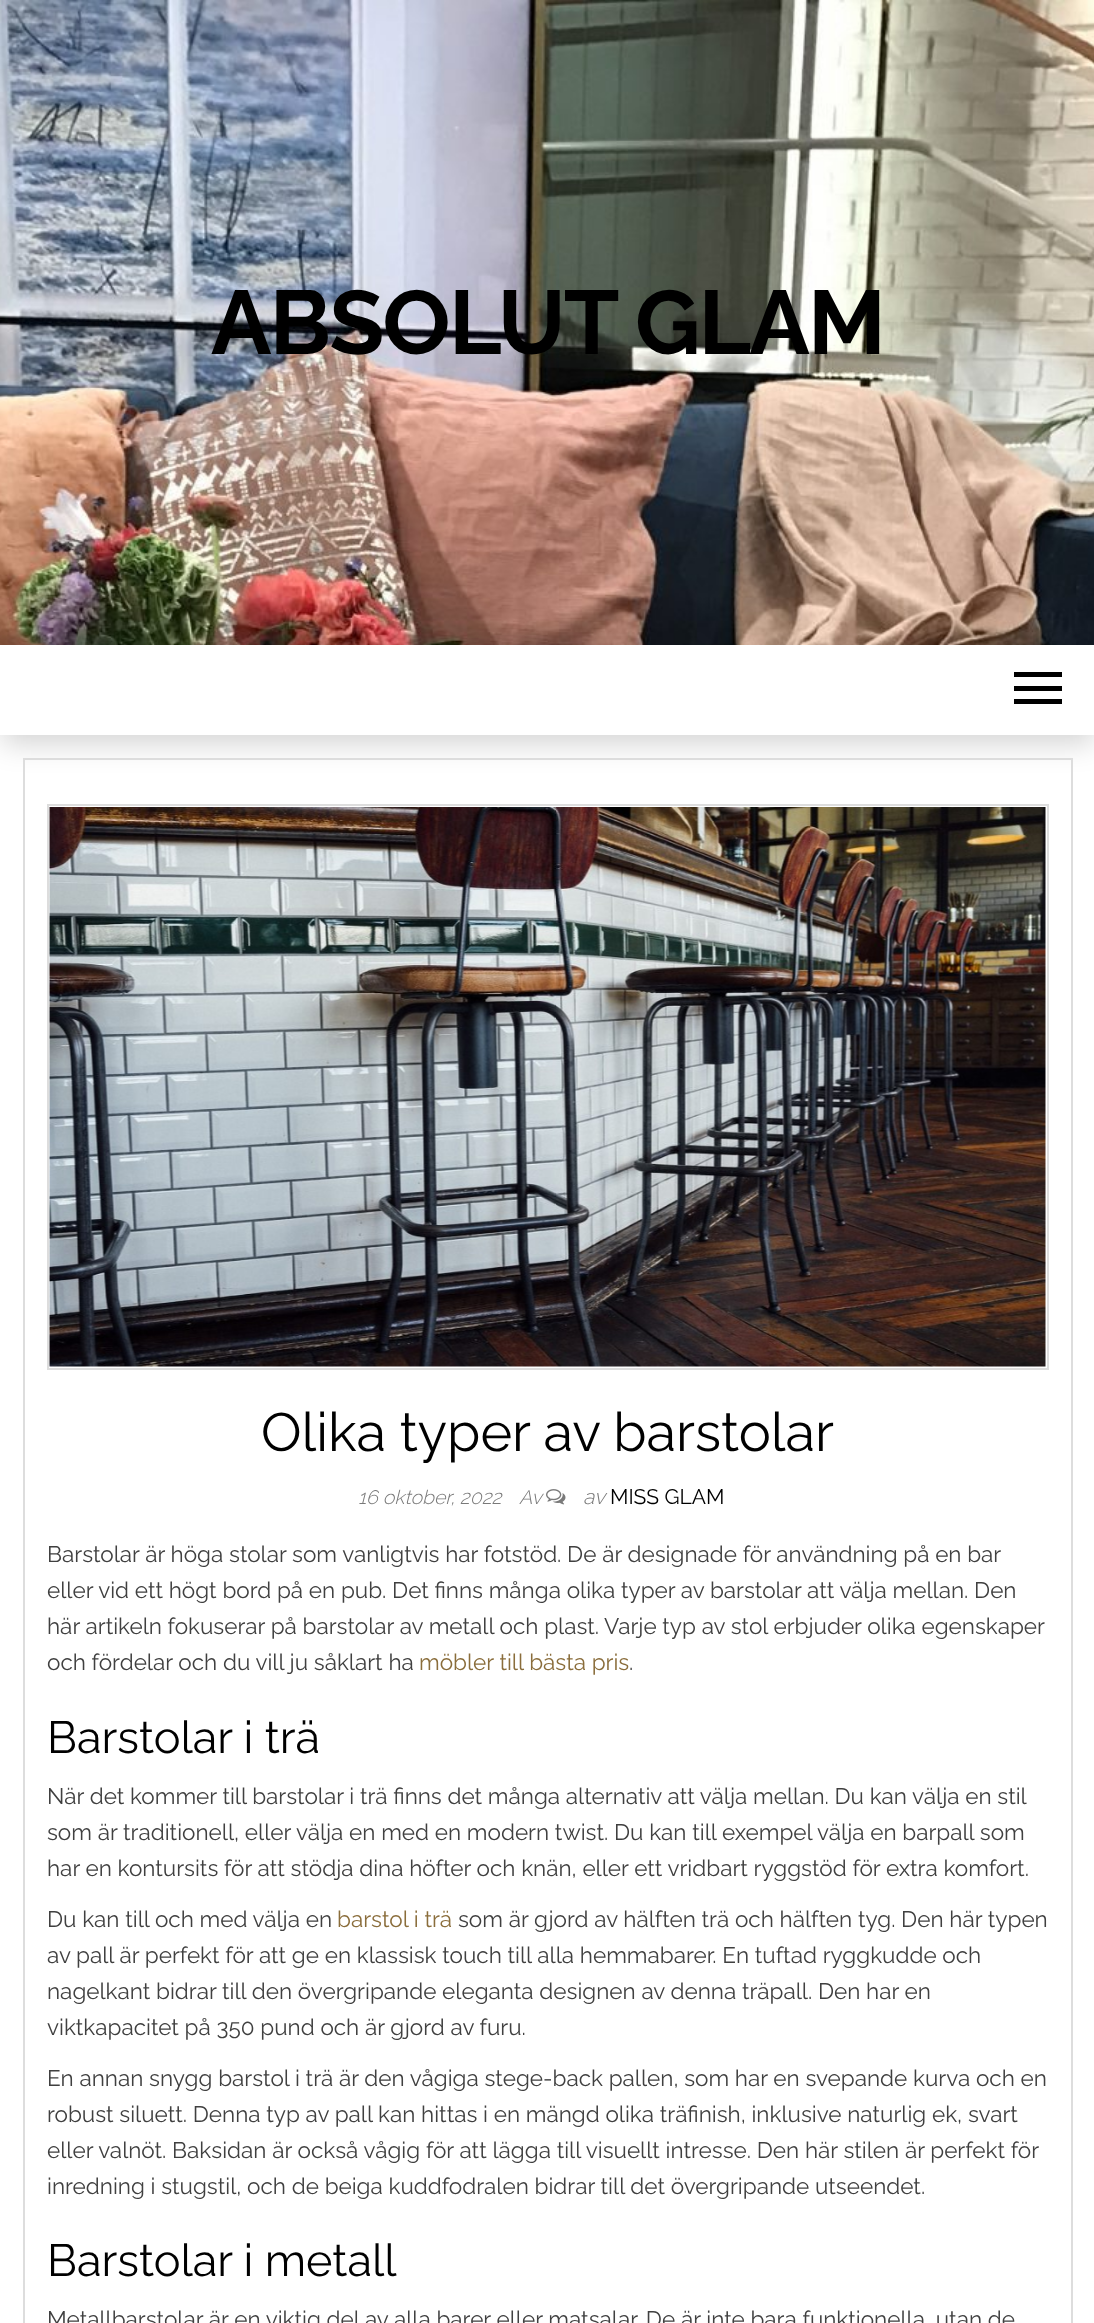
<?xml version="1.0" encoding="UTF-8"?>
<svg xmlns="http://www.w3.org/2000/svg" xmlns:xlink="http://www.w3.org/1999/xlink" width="1094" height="2323">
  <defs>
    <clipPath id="clip1"><path d="M 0 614 h 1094 v 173 h -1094 z m 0 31 h 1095 v 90 h -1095 z" clip-rule="evenodd" /></clipPath>
  </defs>
  <rect width="100%" height="100%" fill="#ffffff" />
  <image x="0" y="0" width="1094" height="645" xlink:href="image1.png" />
  <g clip-path="url(#clip1)">
    <rect x="2" y="657" width="1092" height="87" fill="#000000" fill-opacity="0.17" filter="blur(14px)" />
  </g>
  <rect x="1014" y="672" width="48" height="5" fill="#000000" />
  <rect x="1014" y="686" width="48" height="5" fill="#000000" />
  <rect x="1014" y="699" width="48" height="5" fill="#000000" />
  <rect x="24" y="759" width="1048" height="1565" fill="none" stroke="#dddddd" stroke-width="2" />
  <rect x="48" y="805" width="1000" height="564" fill="none" stroke="#dddddd" stroke-width="2" />
  <image x="49" y="807" width="997" height="560" xlink:href="image2.png" />
  <image x="546" y="1489" width="20" height="16" xlink:href="image3.png" />
  <text x="211" y="354" style="font-family: Raleway; font-size: 90px; font-weight: bold; letter-spacing: -1.75px; fill: #000000">ABSOLUT GLAM</text>
  <text x="261" y="1451" style="font-family: Raleway; font-size: 54px; fill: #000000">Olika typer av barstolar</text>
  <text x="358" y="1504" style="font-family: Raleway; font-size: 19.5px; font-weight: 300; font-style: italic; fill: #797979">16 oktober, 2022</text>
  <text x="519" y="1504" style="font-family: Raleway; font-size: 19.5px; font-weight: 300; font-style: italic; fill: #797979">Av</text>
  <text x="583" y="1504" style="font-family: Raleway; font-size: 21px; font-weight: 300; font-style: italic; fill: #797979">av</text>
  <text x="610" y="1504" style="font-family: Raleway; font-size: 21px; fill: #000000">MISS GLAM</text>
  <text x="47" y="1562" style="font-family: Raleway; font-size: 22.5px; fill: #404040">Barstolar är höga stolar som vanligtvis har fotstöd. De är designade för användning på en bar</text>
  <text x="47" y="1598" style="font-family: Raleway; font-size: 22.5px; fill: #404040">eller vid ett högt bord på en pub. Det finns många olika typer av barstolar att välja mellan. Den</text>
  <text x="47" y="1634" style="font-family: Raleway; font-size: 22.5px; fill: #404040">här artikeln fokuserar på barstolar av metall och plast. Varje typ av stol erbjuder olika egenskaper</text>
  <text x="47" y="1670" style="font-family: Raleway; font-size: 22.5px; fill: #404040">och fördelar och du vill ju såklart ha</text>
  <text x="419" y="1670" style="font-family: Raleway; font-size: 22.5px; fill: #8a6d3b">möbler till bästa pris</text>
  <text x="629" y="1670" style="font-family: Raleway; font-size: 22.5px; fill: #404040">.</text>
  <text x="47" y="1753" style="font-family: Raleway; font-size: 45px; fill: #000000">Barstolar i trä</text>
  <text x="47" y="1804" style="font-family: Raleway; font-size: 22.5px; fill: #404040">När det kommer till barstolar i trä finns det många alternativ att välja mellan. Du kan välja en stil</text>
  <text x="47" y="1840" style="font-family: Raleway; font-size: 22.5px; fill: #404040">som är traditionell, eller välja en med en modern twist. Du kan till exempel välja en barpall som</text>
  <text x="47" y="1876" style="font-family: Raleway; font-size: 22.5px; fill: #404040">har en kontursits för att stödja dina höfter och knän, eller ett vridbart ryggstöd för extra komfort.</text>
  <text x="47" y="1927" style="font-family: Raleway; font-size: 22.5px; fill: #404040">Du kan till och med välja en</text>
  <text x="337" y="1927" style="font-family: Raleway; font-size: 22.5px; fill: #8a6d3b">barstol i trä</text>
  <text x="458" y="1927" style="font-family: Raleway; font-size: 22.5px; fill: #404040">som är gjord av hälften trä och hälften tyg. Den här typen</text>
  <text x="47" y="1963" style="font-family: Raleway; font-size: 22.5px; fill: #404040">av pall är perfekt för att ge en klassisk touch till alla hemmabarer. En tuftad ryggkudde och</text>
  <text x="47" y="1999" style="font-family: Raleway; font-size: 22.5px; fill: #404040">nagelkant bidrar till den övergripande eleganta designen av denna träpall. Den har en</text>
  <text x="47" y="2035" style="font-family: Raleway; font-size: 22.5px; fill: #404040">viktkapacitet på 350 pund och är gjord av furu.</text>
  <text x="47" y="2086" style="font-family: Raleway; font-size: 22.5px; fill: #404040">En annan snygg barstol i trä är den vågiga stege-back pallen, som har en svepande kurva och en</text>
  <text x="47" y="2122" style="font-family: Raleway; font-size: 22.5px; fill: #404040">robust siluett. Denna typ av pall kan hittas i en mängd olika träfinish, inklusive naturlig ek, svart</text>
  <text x="47" y="2158" style="font-family: Raleway; font-size: 22.5px; fill: #404040">eller valnöt. Baksidan är också vågig för att lägga till visuellt intresse. Den här stilen är perfekt för</text>
  <text x="47" y="2194" style="font-family: Raleway; font-size: 22.5px; fill: #404040">inredning i stugstil, och de beiga kuddfodralen bidrar till det övergripande utseendet.</text>
  <text x="47" y="2276" style="font-family: Raleway; font-size: 45px; fill: #000000">Barstolar i metall</text>
  <text x="47" y="2327" style="font-family: Raleway; font-size: 22.5px; fill: #404040">Metallbarstolar är en viktig del av alla barer eller matsalar. De är inte bara funktionella, utan de</text>
</svg>
